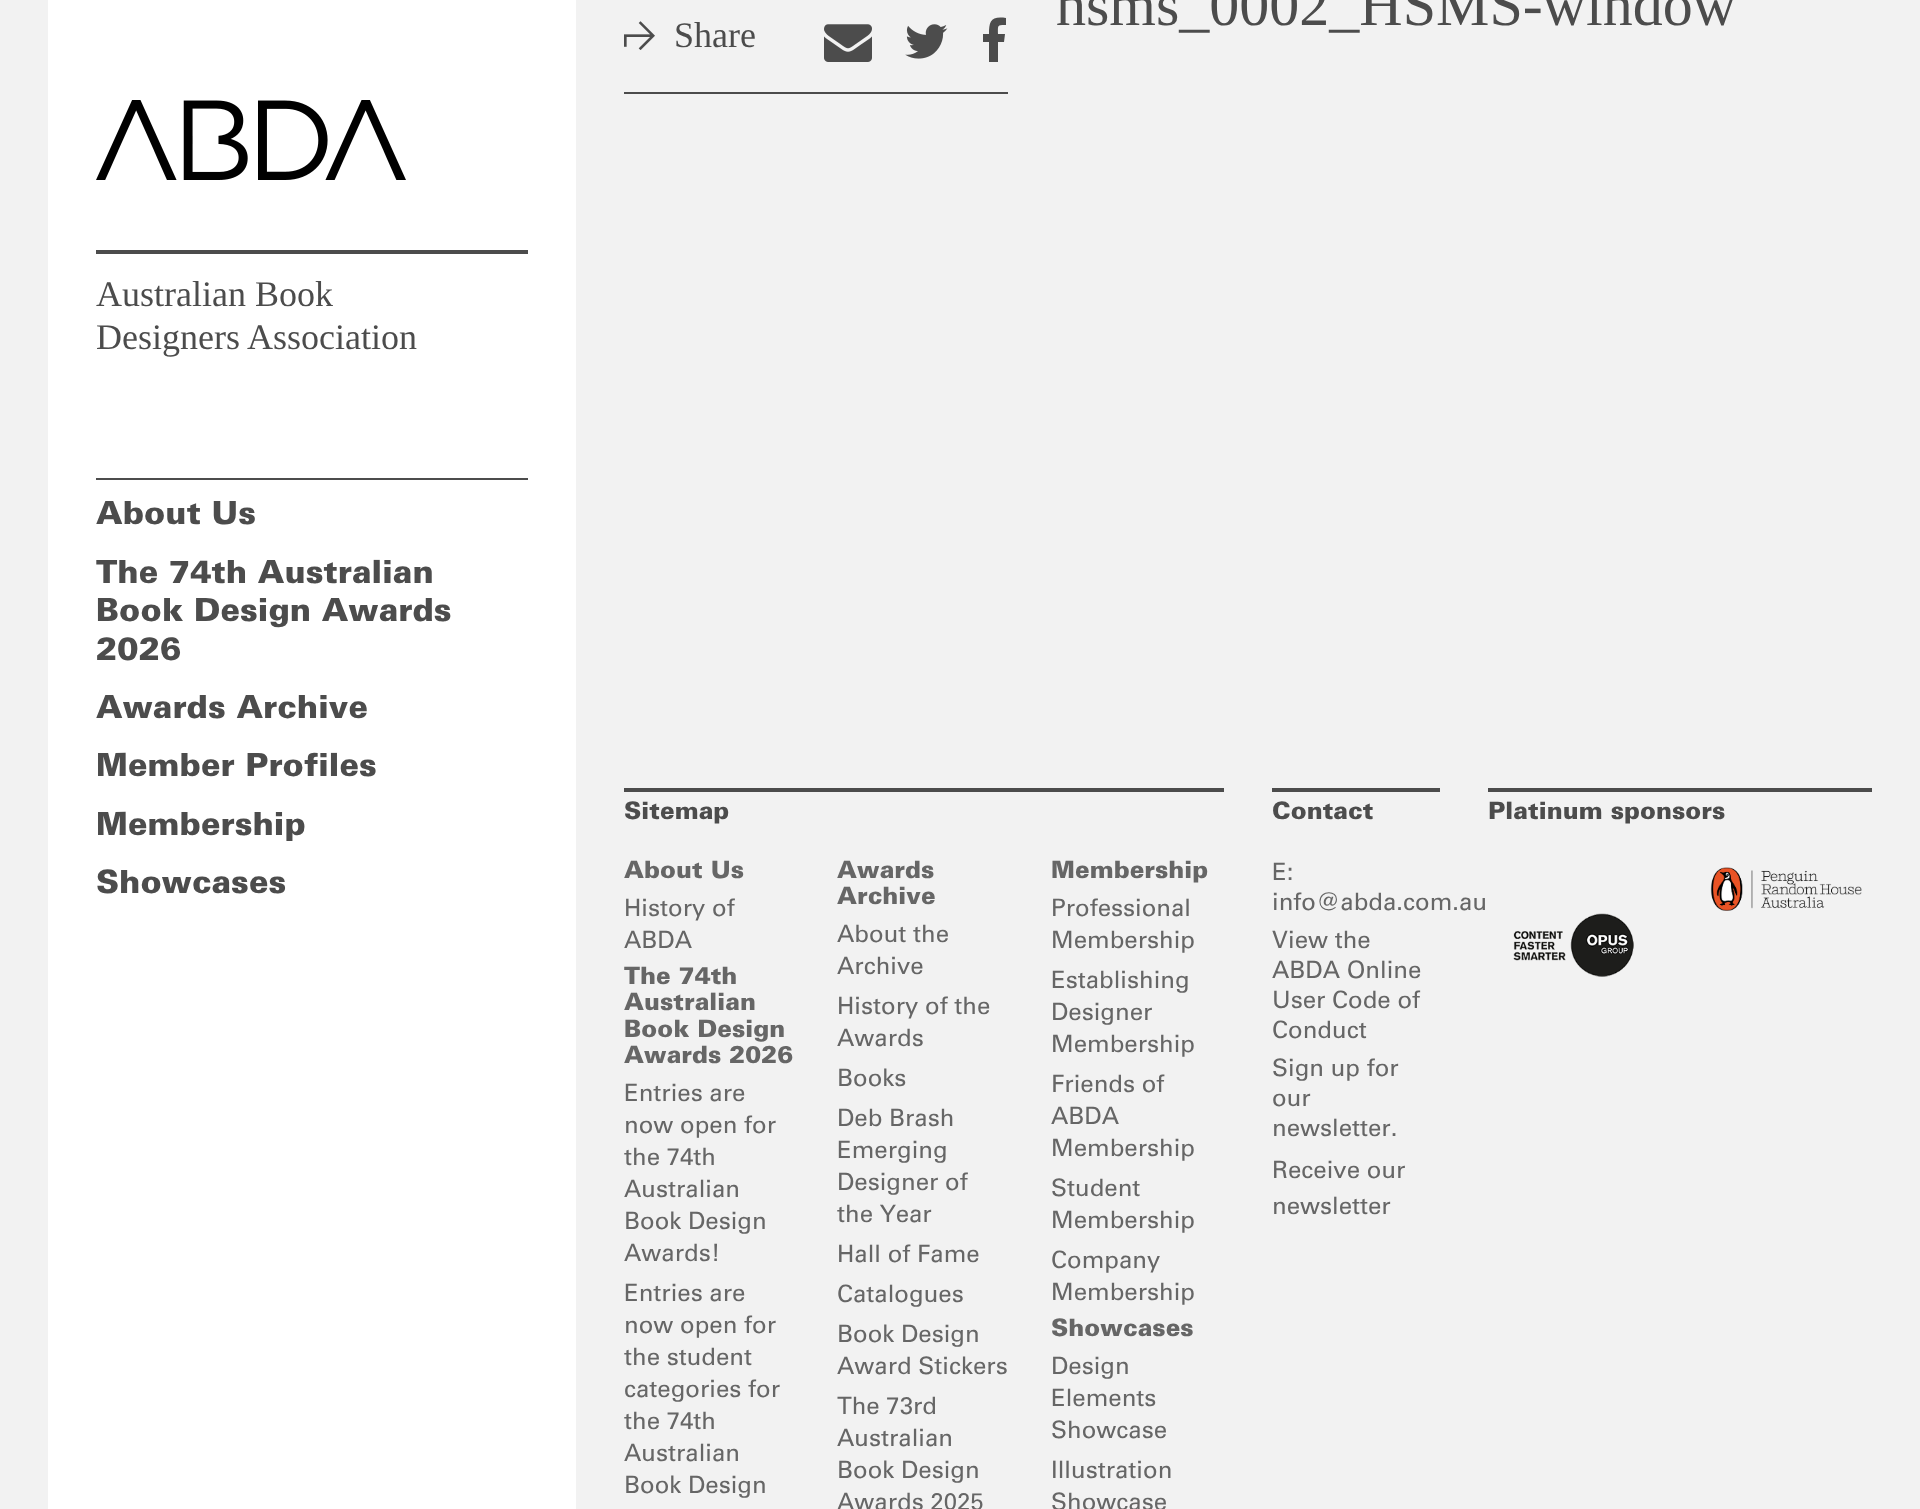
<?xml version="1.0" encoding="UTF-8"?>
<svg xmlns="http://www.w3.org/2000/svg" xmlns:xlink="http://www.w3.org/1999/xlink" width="1920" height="1509">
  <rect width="100%" height="100%" fill="#f2f2f2" />
  <rect x="48" width="528" height="1509" fill="#ffffff" />
  <image x="96" y="100" width="310" height="80" xlink:href="image1.png" />
  <rect x="96" y="250" width="432" height="4" fill="#4c4c4c" />
  <rect x="96" y="478" width="432" height="2" fill="#4c4c4c" />
  <rect x="624" y="92" width="384" height="2" fill="#4c4c4c" />
  <image x="624" y="21" width="31" height="29" xlink:href="image2.png" />
  <image x="824" y="24" width="48" height="38" xlink:href="image3.png" />
  <image x="905" y="24" width="43" height="35" xlink:href="image4.png" />
  <path d="M 1006 18 v 7 c -9 0 -8 0 -8 9 h 7 l -1 8 h -6 v 20 h -9 v -20 h -6 v -8 h 6 c 0 -13 2 -18 17 -16 z" fill="#4c4c4c" />
  <rect x="624" y="788" width="600" height="4" fill="#4c4c4c" />
  <rect x="1272" y="788" width="168" height="4" fill="#4c4c4c" />
  <rect x="1488" y="788" width="384" height="4" fill="#4c4c4c" />
  <image x="1710" y="867" width="152" height="44" xlink:href="image5.png" />
  <image x="1513" y="913" width="121" height="64" xlink:href="image6.png" />
  <text x="96" y="306" style="font-family: Liberation Serif; font-size: 36px; fill: #4c4c4c">Australian Book</text>
  <text x="96" y="349" style="font-family: Liberation Serif; font-size: 36px; fill: #4c4c4c">Designers Association</text>
  <text x="96" y="524" style="font-family: 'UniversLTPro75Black'; font-size: 32px; fill: #4c4c4c">About Us</text>
  <text x="96" y="583" style="font-family: 'UniversLTPro75Black'; font-size: 32px; fill: #4c4c4c">The 74th Australian</text>
  <text x="96" y="621" style="font-family: 'UniversLTPro75Black'; font-size: 32px; fill: #4c4c4c">Book Design Awards</text>
  <text x="96" y="660" style="font-family: 'UniversLTPro75Black'; font-size: 32px; fill: #4c4c4c">2026</text>
  <text x="96" y="718" style="font-family: 'UniversLTPro75Black'; font-size: 32px; fill: #4c4c4c">Awards Archive</text>
  <text x="96" y="776" style="font-family: 'UniversLTPro75Black'; font-size: 32px; fill: #4c4c4c">Member Profiles</text>
  <text x="96" y="835" style="font-family: 'UniversLTPro75Black'; font-size: 32px; fill: #4c4c4c">Membership</text>
  <text x="96" y="893" style="font-family: 'UniversLTPro75Black'; font-size: 32px; fill: #4c4c4c">Showcases</text>
  <text x="674" y="47" style="font-family: Liberation Serif; font-size: 36px; fill: #4c4c4c">Share</text>
  <text x="1056" y="25" style="font-family: Liberation Serif; font-size: 60px; fill: #4c4c4c">hsms_0002_HSMS-window</text>
  <text x="624" y="819" style="font-family: 'UniversLTPro75Black'; font-size: 24px; fill: #4c4c4c">Sitemap</text>
  <text x="624" y="878" style="font-family: 'UniversLTPro75Black'; font-size: 24px; fill: #666666">About Us</text>
  <text x="624" y="916" style="font-family: 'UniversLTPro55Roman'; font-size: 24px; fill: #666666">History of</text>
  <text x="624" y="948" style="font-family: 'UniversLTPro55Roman'; font-size: 24px; fill: #666666">ABDA</text>
  <text x="624" y="984" style="font-family: 'UniversLTPro75Black'; font-size: 24px; fill: #666666">The 74th</text>
  <text x="624" y="1010" style="font-family: 'UniversLTPro75Black'; font-size: 24px; fill: #666666">Australian</text>
  <text x="624" y="1037" style="font-family: 'UniversLTPro75Black'; font-size: 24px; fill: #666666">Book Design</text>
  <text x="624" y="1063" style="font-family: 'UniversLTPro75Black'; font-size: 24px; fill: #666666">Awards 2026</text>
  <text x="624" y="1101" style="font-family: 'UniversLTPro55Roman'; font-size: 24px; fill: #666666">Entries are</text>
  <text x="624" y="1133" style="font-family: 'UniversLTPro55Roman'; font-size: 24px; fill: #666666">now open for</text>
  <text x="624" y="1165" style="font-family: 'UniversLTPro55Roman'; font-size: 24px; fill: #666666">the 74th</text>
  <text x="624" y="1197" style="font-family: 'UniversLTPro55Roman'; font-size: 24px; fill: #666666">Australian</text>
  <text x="624" y="1229" style="font-family: 'UniversLTPro55Roman'; font-size: 24px; fill: #666666">Book Design</text>
  <text x="624" y="1261" style="font-family: 'UniversLTPro55Roman'; font-size: 24px; fill: #666666">Awards!</text>
  <text x="624" y="1301" style="font-family: 'UniversLTPro55Roman'; font-size: 24px; fill: #666666">Entries are</text>
  <text x="624" y="1333" style="font-family: 'UniversLTPro55Roman'; font-size: 24px; fill: #666666">now open for</text>
  <text x="624" y="1365" style="font-family: 'UniversLTPro55Roman'; font-size: 24px; fill: #666666">the student</text>
  <text x="624" y="1397" style="font-family: 'UniversLTPro55Roman'; font-size: 24px; fill: #666666">categories for</text>
  <text x="624" y="1429" style="font-family: 'UniversLTPro55Roman'; font-size: 24px; fill: #666666">the 74th</text>
  <text x="624" y="1461" style="font-family: 'UniversLTPro55Roman'; font-size: 24px; fill: #666666">Australian</text>
  <text x="624" y="1493" style="font-family: 'UniversLTPro55Roman'; font-size: 24px; fill: #666666">Book Design</text>
  <text x="837" y="878" style="font-family: 'UniversLTPro75Black'; font-size: 24px; fill: #666666">Awards</text>
  <text x="837" y="904" style="font-family: 'UniversLTPro75Black'; font-size: 24px; fill: #666666">Archive</text>
  <text x="837" y="942" style="font-family: 'UniversLTPro55Roman'; font-size: 24px; fill: #666666">About the</text>
  <text x="837" y="974" style="font-family: 'UniversLTPro55Roman'; font-size: 24px; fill: #666666">Archive</text>
  <text x="837" y="1014" style="font-family: 'UniversLTPro55Roman'; font-size: 24px; fill: #666666">History of the</text>
  <text x="837" y="1046" style="font-family: 'UniversLTPro55Roman'; font-size: 24px; fill: #666666">Awards</text>
  <text x="837" y="1086" style="font-family: 'UniversLTPro55Roman'; font-size: 24px; fill: #666666">Books</text>
  <text x="837" y="1126" style="font-family: 'UniversLTPro55Roman'; font-size: 24px; fill: #666666">Deb Brash</text>
  <text x="837" y="1158" style="font-family: 'UniversLTPro55Roman'; font-size: 24px; fill: #666666">Emerging</text>
  <text x="837" y="1190" style="font-family: 'UniversLTPro55Roman'; font-size: 24px; fill: #666666">Designer of</text>
  <text x="837" y="1222" style="font-family: 'UniversLTPro55Roman'; font-size: 24px; fill: #666666">the Year</text>
  <text x="837" y="1262" style="font-family: 'UniversLTPro55Roman'; font-size: 24px; fill: #666666">Hall of Fame</text>
  <text x="837" y="1302" style="font-family: 'UniversLTPro55Roman'; font-size: 24px; fill: #666666">Catalogues</text>
  <text x="837" y="1342" style="font-family: 'UniversLTPro55Roman'; font-size: 24px; fill: #666666">Book Design</text>
  <text x="837" y="1374" style="font-family: 'UniversLTPro55Roman'; font-size: 24px; fill: #666666">Award Stickers</text>
  <text x="837" y="1414" style="font-family: 'UniversLTPro55Roman'; font-size: 24px; fill: #666666">The 73rd</text>
  <text x="837" y="1446" style="font-family: 'UniversLTPro55Roman'; font-size: 24px; fill: #666666">Australian</text>
  <text x="837" y="1478" style="font-family: 'UniversLTPro55Roman'; font-size: 24px; fill: #666666">Book Design</text>
  <text x="837" y="1510" style="font-family: 'UniversLTPro55Roman'; font-size: 24px; fill: #666666">Awards 2025</text>
  <text x="1051" y="878" style="font-family: 'UniversLTPro75Black'; font-size: 24px; fill: #666666">Membership</text>
  <text x="1051" y="916" style="font-family: 'UniversLTPro55Roman'; font-size: 24px; fill: #666666">Professional</text>
  <text x="1051" y="948" style="font-family: 'UniversLTPro55Roman'; font-size: 24px; fill: #666666">Membership</text>
  <text x="1051" y="988" style="font-family: 'UniversLTPro55Roman'; font-size: 24px; fill: #666666">Establishing</text>
  <text x="1051" y="1020" style="font-family: 'UniversLTPro55Roman'; font-size: 24px; fill: #666666">Designer</text>
  <text x="1051" y="1052" style="font-family: 'UniversLTPro55Roman'; font-size: 24px; fill: #666666">Membership</text>
  <text x="1051" y="1092" style="font-family: 'UniversLTPro55Roman'; font-size: 24px; fill: #666666">Friends of</text>
  <text x="1051" y="1124" style="font-family: 'UniversLTPro55Roman'; font-size: 24px; fill: #666666">ABDA</text>
  <text x="1051" y="1156" style="font-family: 'UniversLTPro55Roman'; font-size: 24px; fill: #666666">Membership</text>
  <text x="1051" y="1196" style="font-family: 'UniversLTPro55Roman'; font-size: 24px; fill: #666666">Student</text>
  <text x="1051" y="1228" style="font-family: 'UniversLTPro55Roman'; font-size: 24px; fill: #666666">Membership</text>
  <text x="1051" y="1268" style="font-family: 'UniversLTPro55Roman'; font-size: 24px; fill: #666666">Company</text>
  <text x="1051" y="1300" style="font-family: 'UniversLTPro55Roman'; font-size: 24px; fill: #666666">Membership</text>
  <text x="1051" y="1336" style="font-family: 'UniversLTPro75Black'; font-size: 24px; fill: #666666">Showcases</text>
  <text x="1051" y="1374" style="font-family: 'UniversLTPro55Roman'; font-size: 24px; fill: #666666">Design</text>
  <text x="1051" y="1406" style="font-family: 'UniversLTPro55Roman'; font-size: 24px; fill: #666666">Elements</text>
  <text x="1051" y="1438" style="font-family: 'UniversLTPro55Roman'; font-size: 24px; fill: #666666">Showcase</text>
  <text x="1051" y="1478" style="font-family: 'UniversLTPro55Roman'; font-size: 24px; fill: #666666">Illustration</text>
  <text x="1051" y="1510" style="font-family: 'UniversLTPro55Roman'; font-size: 24px; fill: #666666">Showcase</text>
  <text x="1272" y="819" style="font-family: 'UniversLTPro75Black'; font-size: 24px; fill: #4c4c4c">Contact</text>
  <text x="1272" y="880" style="font-family: 'UniversLTPro55Roman'; font-size: 24px; fill: #666666">E:</text>
  <text x="1272" y="910" style="font-family: 'UniversLTPro55Roman'; font-size: 24px; fill: #666666">info@abda.com.au</text>
  <text x="1272" y="948" style="font-family: 'UniversLTPro55Roman'; font-size: 24px; fill: #666666">View the</text>
  <text x="1272" y="978" style="font-family: 'UniversLTPro55Roman'; font-size: 24px; fill: #666666">ABDA Online</text>
  <text x="1272" y="1008" style="font-family: 'UniversLTPro55Roman'; font-size: 24px; fill: #666666">User Code of</text>
  <text x="1272" y="1038" style="font-family: 'UniversLTPro55Roman'; font-size: 24px; fill: #666666">Conduct</text>
  <text x="1272" y="1076" style="font-family: 'UniversLTPro55Roman'; font-size: 24px; fill: #666666">Sign up for</text>
  <text x="1272" y="1106" style="font-family: 'UniversLTPro55Roman'; font-size: 24px; fill: #666666">our</text>
  <text x="1272" y="1136" style="font-family: 'UniversLTPro55Roman'; font-size: 24px; fill: #666666">newsletter.</text>
  <text x="1272" y="1178" style="font-family: 'UniversLTPro55Roman'; font-size: 24px; fill: #666666">Receive our</text>
  <text x="1272" y="1214" style="font-family: 'UniversLTPro55Roman'; font-size: 24px; fill: #666666">newsletter</text>
  <text x="1488" y="819" style="font-family: 'UniversLTPro75Black'; font-size: 24px; fill: #4c4c4c">Platinum sponsors</text>
</svg>
